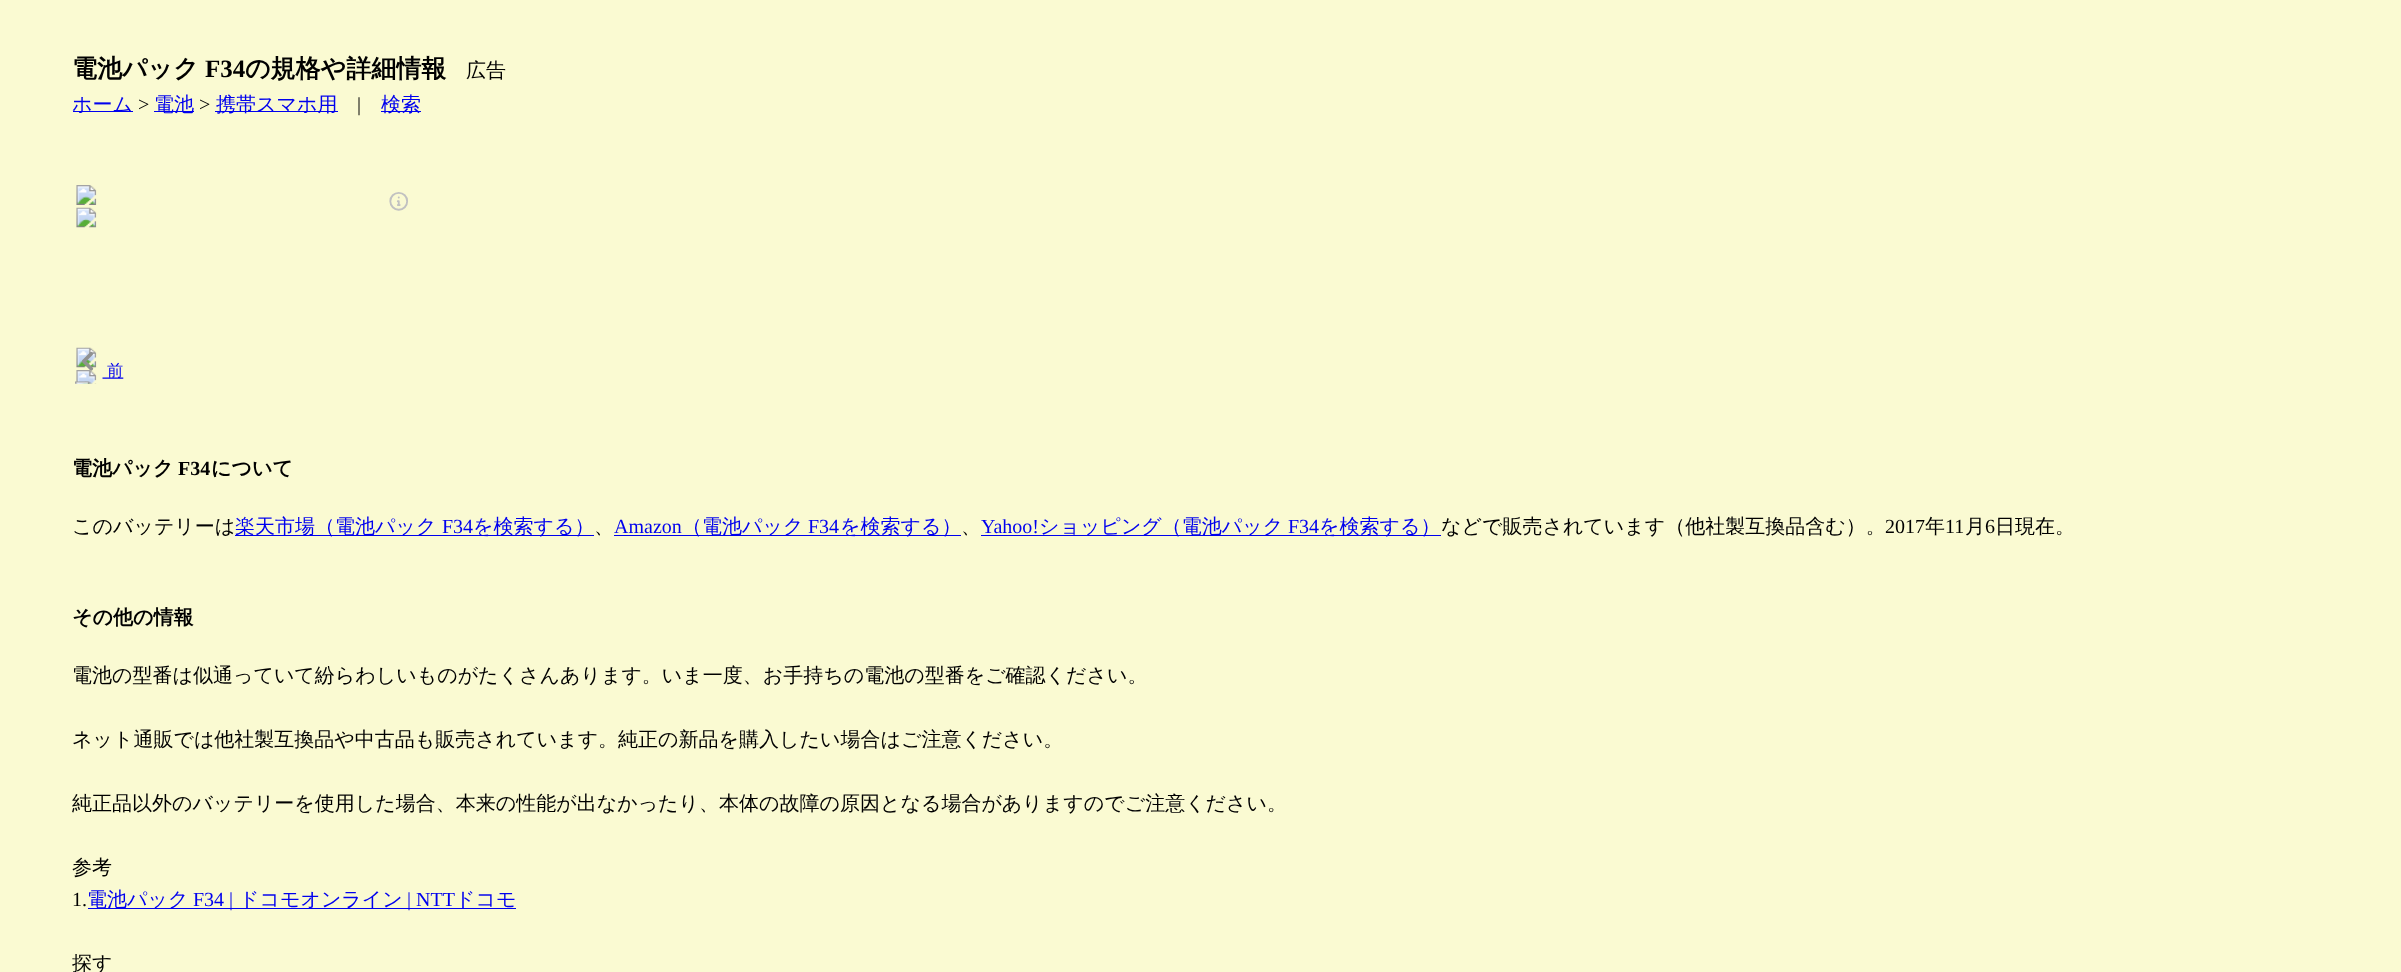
<?xml version="1.0" encoding="UTF-8"?>
<svg xmlns="http://www.w3.org/2000/svg" xmlns:xlink="http://www.w3.org/1999/xlink" width="2401" height="972">
  <rect width="100%" height="100%" fill="#fafad2" />
  <rect x="73" y="111" width="60" height="1" fill="#0000ee" />
  <rect x="154" y="111" width="40" height="1" fill="#0000ee" />
  <rect x="215" y="111" width="123" height="1" fill="#0000ee" />
  <rect x="381" y="111" width="40" height="1" fill="#0000ee" />
  <image x="75" y="185" width="333" height="199" xlink:href="image1.png" />
  <rect x="235" y="535" width="359" height="1" fill="#0000ee" />
  <rect x="614" y="535" width="347" height="1" fill="#0000ee" />
  <rect x="981" y="535" width="460" height="1" fill="#0000ee" />
  <rect x="88" y="908" width="428" height="1" fill="#0000ee" />
  <text x="72" y="77" style="font-family: WenQuanYi Zen Hei; font-size: 25px; font-weight: bold; fill: #000000">電池パック</text>
  <text x="205" y="77" style="font-family: Liberation Serif; font-size: 25px; font-weight: bold; fill: #000000">F34</text>
  <text x="245" y="77" style="font-family: WenQuanYi Zen Hei; font-size: 25px; font-weight: bold; fill: #000000">の規格や詳細情報</text>
  <text x="466" y="77" style="font-family: WenQuanYi Zen Hei; font-size: 20px; font-weight: 500; fill: #000000">広告</text>
  <text x="72" y="111" style="font-family: WenQuanYi Zen Hei; font-size: 20px; font-weight: 500; fill: #0000ee">ホーム</text>
  <text x="138" y="111" style="font-family: Liberation Serif; font-size: 20px; fill: #000000">&gt;</text>
  <text x="154" y="111" style="font-family: WenQuanYi Zen Hei; font-size: 20px; font-weight: 500; fill: #0000ee">電池</text>
  <text x="199" y="111" style="font-family: Liberation Serif; font-size: 20px; fill: #000000">&gt;</text>
  <text x="216" y="111" style="font-family: WenQuanYi Zen Hei; font-size: 20px; font-weight: 500; fill: #0000ee">携帯スマホ用</text>
  <text x="357" y="111" style="font-family: Liberation Serif; font-size: 20px; fill: #000000">|</text>
  <text x="381" y="111" style="font-family: WenQuanYi Zen Hei; font-size: 20px; font-weight: 500; fill: #0000ee">検索</text>
  <text x="72" y="475" style="font-family: WenQuanYi Zen Hei; font-size: 20px; font-weight: bold; fill: #000000">電池パック</text>
  <text x="178" y="475" style="font-family: Liberation Serif; font-size: 20px; font-weight: bold; fill: #000000">F34</text>
  <text x="211" y="475" style="font-family: WenQuanYi Zen Hei; font-size: 20px; font-weight: bold; fill: #000000">について</text>
  <text x="72" y="533" style="font-family: WenQuanYi Zen Hei; font-size: 20px; font-weight: 500; fill: #000000">このバッテリーは</text>
  <text x="235" y="533" style="font-family: WenQuanYi Zen Hei; font-size: 20px; font-weight: 500; fill: #0000ee">楽天市場（電池パック</text>
  <text x="442" y="533" style="font-family: Liberation Serif; font-size: 20px; fill: #0000ee">F34</text>
  <text x="473" y="533" style="font-family: WenQuanYi Zen Hei; font-size: 20px; font-weight: 500; fill: #0000ee">を検索する）</text>
  <text x="594" y="533" style="font-family: WenQuanYi Zen Hei; font-size: 20px; font-weight: 500; fill: #000000">、</text>
  <text x="614" y="533" style="font-family: Liberation Serif; font-size: 20px; fill: #0000ee">Amazon</text>
  <text x="682" y="533" style="font-family: WenQuanYi Zen Hei; font-size: 20px; font-weight: 500; fill: #0000ee">（電池パック</text>
  <text x="808" y="533" style="font-family: Liberation Serif; font-size: 20px; fill: #0000ee">F34</text>
  <text x="840" y="533" style="font-family: WenQuanYi Zen Hei; font-size: 20px; font-weight: 500; fill: #0000ee">を検索する）</text>
  <text x="961" y="533" style="font-family: WenQuanYi Zen Hei; font-size: 20px; font-weight: 500; fill: #000000">、</text>
  <text x="981" y="533" style="font-family: Liberation Serif; font-size: 20px; fill: #0000ee">Yahoo!</text>
  <text x="1039" y="533" style="font-family: WenQuanYi Zen Hei; font-size: 20px; font-weight: 500; fill: #0000ee">ショッピング（電池パック</text>
  <text x="1288" y="533" style="font-family: Liberation Serif; font-size: 20px; fill: #0000ee">F34</text>
  <text x="1319" y="533" style="font-family: WenQuanYi Zen Hei; font-size: 20px; font-weight: 500; fill: #0000ee">を検索する）</text>
  <text x="1441" y="533" style="font-family: WenQuanYi Zen Hei; font-size: 20px; font-weight: 500; fill: #000000">などで販売されています（他社製互換品含む）。</text>
  <text x="1885" y="533" style="font-family: Liberation Serif; font-size: 20px; fill: #000000">2017</text>
  <text x="1925" y="533" style="font-family: WenQuanYi Zen Hei; font-size: 20px; font-weight: 500; fill: #000000">年</text>
  <text x="1945" y="533" style="font-family: Liberation Serif; font-size: 20px; fill: #000000">11</text>
  <text x="1965" y="533" style="font-family: WenQuanYi Zen Hei; font-size: 20px; font-weight: 500; fill: #000000">月</text>
  <text x="1985" y="533" style="font-family: Liberation Serif; font-size: 20px; fill: #000000">6</text>
  <text x="1995" y="533" style="font-family: WenQuanYi Zen Hei; font-size: 20px; font-weight: 500; fill: #000000">日現在。</text>
  <text x="72" y="624" style="font-family: WenQuanYi Zen Hei; font-size: 20px; font-weight: bold; fill: #000000">その他の情報</text>
  <text x="72" y="682" style="font-family: WenQuanYi Zen Hei; font-size: 20px; font-weight: 500; fill: #000000">電池の型番は似通っていて紛らわしいものがたくさんあります。いま一度、お手持ちの電池の型番をご確認ください。</text>
  <text x="72" y="746" style="font-family: WenQuanYi Zen Hei; font-size: 20px; font-weight: 500; fill: #000000">ネット通販では他社製互換品や中古品も販売されています。純正の新品を購入したい場合はご注意ください。</text>
  <text x="72" y="810" style="font-family: WenQuanYi Zen Hei; font-size: 20px; font-weight: 500; fill: #000000">純正品以外のバッテリーを使用した場合、本来の性能が出なかったり、本体の故障の原因となる場合がありますのでご注意ください。</text>
  <text x="72" y="874" style="font-family: WenQuanYi Zen Hei; font-size: 20px; font-weight: 500; fill: #000000">参考</text>
  <text x="72" y="906" style="font-family: Liberation Serif; font-size: 20px; fill: #000000">1.</text>
  <text x="87" y="906" style="font-family: WenQuanYi Zen Hei; font-size: 20px; font-weight: 500; fill: #0000ee">電池パック</text>
  <text x="193" y="906" style="font-family: Liberation Serif; font-size: 20px; fill: #0000ee">F34 |</text>
  <text x="239" y="906" style="font-family: WenQuanYi Zen Hei; font-size: 20px; font-weight: 500; fill: #0000ee">ドコモオンライン</text>
  <text x="407" y="906" style="font-family: Liberation Serif; font-size: 20px; fill: #0000ee">| NTT</text>
  <text x="455" y="906" style="font-family: WenQuanYi Zen Hei; font-size: 20px; font-weight: 500; fill: #0000ee">ドコモ</text>
  <text x="72" y="970" style="font-family: WenQuanYi Zen Hei; font-size: 20px; font-weight: 500; fill: #000000">探す</text>
</svg>
